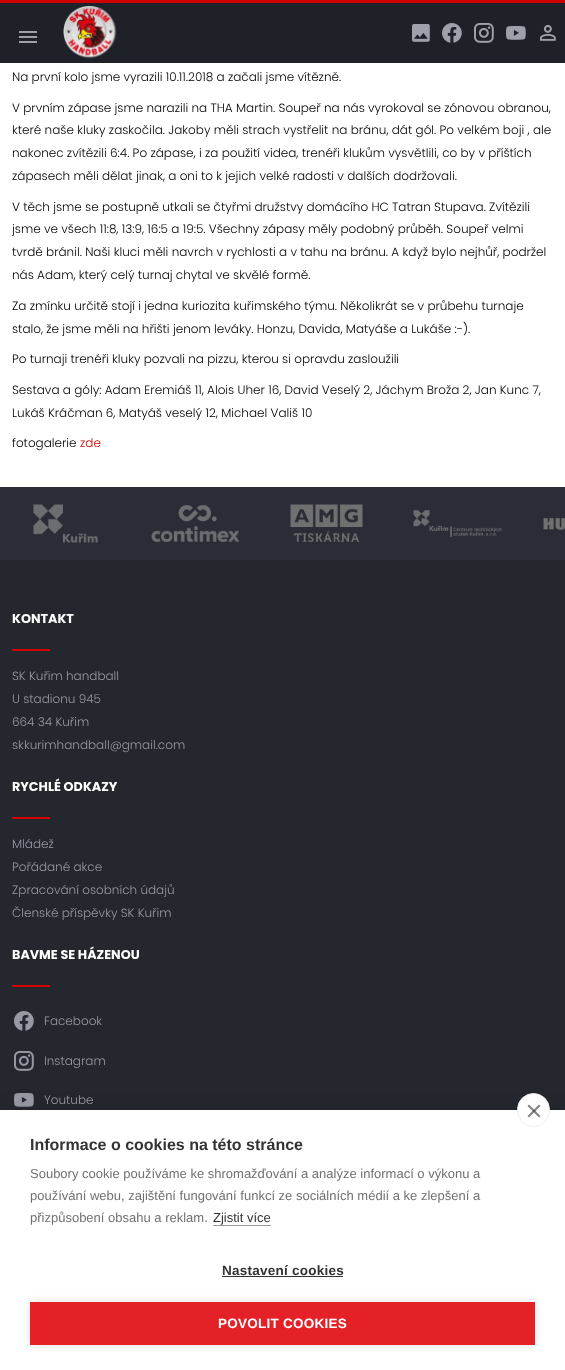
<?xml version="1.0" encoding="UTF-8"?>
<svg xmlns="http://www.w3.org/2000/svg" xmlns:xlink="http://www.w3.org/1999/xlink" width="565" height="1370">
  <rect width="100%" height="100%" fill="#ffffff" />
  <rect y="3" width="565" height="60" fill="#1e2128" />
  <rect width="565" height="3" fill="#d10000" />
  <image x="19" y="31" width="18" height="12" xlink:href="image1.png" />
  <image x="63" y="6" width="54" height="52" xlink:href="image2.png" />
  <image x="411" y="24" width="19" height="18" xlink:href="image3.png" />
  <image x="442" y="23" width="20" height="20" xlink:href="image4.png" />
  <image x="474" y="23" width="20" height="20" xlink:href="image5.png" />
  <image x="506" y="25" width="20" height="15" xlink:href="image6.png" />
  <image x="539" y="25" width="17" height="16" xlink:href="image7.png" />
  <rect y="560" width="565" height="550" fill="#24272e" />
  <rect y="487" width="565" height="73" fill="#2a2d36" />
  <image x="33" y="504" width="65" height="39" xlink:href="image8.png" />
  <image x="151" y="505" width="89" height="37" xlink:href="image9.png" />
  <image x="290" y="504" width="73" height="38" xlink:href="image10.png" />
  <image x="413" y="510" width="89" height="27" xlink:href="image11.png" />
  <image x="543" y="518" width="22" height="12" xlink:href="image12.png" />
  <rect x="12" y="649" width="38" height="2" fill="#d10000" />
  <rect x="12" y="817" width="38" height="2" fill="#d10000" />
  <rect x="12" y="985" width="38" height="2" fill="#d10000" />
  <image x="14" y="1011" width="20" height="20" xlink:href="image13.png" />
  <image x="14" y="1051" width="20" height="20" xlink:href="image14.png" />
  <image x="14" y="1092" width="20" height="15" xlink:href="image15.png" />
  <rect y="1110" width="565" height="260" fill="#000000" fill-opacity="0.1" filter="blur(10px)" />
  <rect y="1110" width="565" height="260" fill="#ffffff" />
  <rect x="517.5" y="1093.5" width="32" height="33" rx="16" fill="#ffffff" stroke="#eeeeee" />
  <path d="M 527.5 1116 l 11.5 -11.5 l 1.5 1.5 l -11.5 11.5 z" fill="#858585" />
  <path d="M 529 1104.5 l 11.5 11.5 l -1.5 1.5 l -11.5 -11.5 z" fill="#333333" fill-opacity="0.6" />
  <rect x="213" y="1225" width="58" height="1" fill="#999999" />
  <rect x="222" y="1276" width="121" height="1" fill="#333333" />
  <rect x="30" y="1302" width="505" height="43" fill="#000000" fill-opacity="0.12" filter="blur(5px)" />
  <rect x="30" y="1302" width="505" height="43" fill="#e42127" />
  <text x="12" y="81" style="font-family: Poppins; font-size: 12px; font-weight: 300; fill: #000000">Na první kolo jsme vyrazili 10.11.2018 a začali jsme vítězně.</text>
  <text x="12" y="112" style="font-family: Poppins; font-size: 12px; font-weight: 300; fill: #000000">V prvním zápase jsme narazili na THA Martin. Soupeř na nás vyrokoval se zónovou obranou,</text>
  <text x="12" y="134" style="font-family: Poppins; font-size: 12px; font-weight: 300; fill: #000000">které naše kluky zaskočila. Jakoby měli strach vystřelit na bránu, dát gól. Po velkém boji , ale</text>
  <text x="12" y="157" style="font-family: Poppins; font-size: 12px; font-weight: 300; fill: #000000">nakonec zvítězili 6:4. Po zápase, i za použití videa, trenéři klukům vysvětlili, co by v příštích</text>
  <text x="12" y="180" style="font-family: Poppins; font-size: 12px; font-weight: 300; fill: #000000">zápasech měli dělat jinak, a oni to k jejich velké radosti v dalších dodržovali.</text>
  <text x="12" y="211" style="font-family: Poppins; font-size: 12px; font-weight: 300; fill: #000000">V těch jsme se postupně utkali se čtyřmi družstvy domácího HC Tatran Stupava. Zvítězili</text>
  <text x="12" y="233" style="font-family: Poppins; font-size: 12px; font-weight: 300; fill: #000000">jsme ve všech 11:8, 13:9, 16:5 a 19:5. Všechny zápasy měly podobný průběh. Soupeř velmi</text>
  <text x="12" y="256" style="font-family: Poppins; font-size: 12px; font-weight: 300; fill: #000000">tvrdě bránil. Naši kluci měli navrch v rychlosti a v tahu na bránu. A když bylo nejhůř, podržel</text>
  <text x="12" y="279" style="font-family: Poppins; font-size: 12px; font-weight: 300; fill: #000000">nás Adam, který celý turnaj chytal ve skvělé formě.</text>
  <text x="12" y="310" style="font-family: Poppins; font-size: 12px; font-weight: 300; fill: #000000">Za zmínku určitě stojí i jedna kuriozita kuřimského týmu. Několikrát se v průbehu turnaje</text>
  <text x="12" y="333" style="font-family: Poppins; font-size: 12px; font-weight: 300; fill: #000000">stalo, že jsme měli na hřišti jenom leváky. Honzu, Davida, Matyáše a Lukáše :-).</text>
  <text x="12" y="363" style="font-family: Poppins; font-size: 12px; font-weight: 300; fill: #000000">Po turnaji trenéři kluky pozvali na pizzu, kterou si opravdu zasloužili</text>
  <text x="12" y="394" style="font-family: Poppins; font-size: 12px; font-weight: 300; fill: #000000">Sestava a góly: Adam Eremiáš 11, Alois Uher 16, David Veselý 2, Jáchym Broža 2, Jan Kunc 7,</text>
  <text x="12" y="417" style="font-family: Poppins; font-size: 12px; font-weight: 300; fill: #000000">Lukáš Kráčman 6, Matyáš veselý 12, Michael Vališ 10</text>
  <text x="12" y="447" style="font-family: Poppins; font-size: 12px; font-weight: 300; fill: #000000">fotogalerie</text>
  <text x="80" y="447" style="font-family: Poppins; font-size: 12px; font-weight: 300; fill: #d10000">zde</text>
  <text x="12" y="623" style="font-family: Poppins; font-size: 12.75px; font-weight: bold; fill: #ffffff">KONTAKT</text>
  <text x="12" y="680" style="font-family: Poppins; font-size: 12px; font-weight: 300; fill: #979aa3">SK Kuřim handball</text>
  <text x="12" y="703" style="font-family: Poppins; font-size: 12px; font-weight: 300; fill: #979aa3">U stadionu 945</text>
  <text x="12" y="726" style="font-family: Poppins; font-size: 12px; font-weight: 300; fill: #979aa3">664 34 Kuřim</text>
  <text x="12" y="749" style="font-family: Poppins; font-size: 12px; font-weight: 300; fill: #979aa3">skkurimhandball@gmail.com</text>
  <text x="12" y="791" style="font-family: Poppins; font-size: 12.75px; font-weight: bold; fill: #ffffff">RYCHLÉ ODKAZY</text>
  <text x="12" y="848" style="font-family: Poppins; font-size: 12px; font-weight: 300; fill: #979aa3">Mládež</text>
  <text x="12" y="871" style="font-family: Poppins; font-size: 12px; font-weight: 300; fill: #979aa3">Pořádané akce</text>
  <text x="12" y="894" style="font-family: Poppins; font-size: 12px; font-weight: 300; fill: #979aa3">Zpracování osobních údajů</text>
  <text x="12" y="917" style="font-family: Poppins; font-size: 12px; font-weight: 300; fill: #979aa3">Členské příspěvky SK Kuřim</text>
  <text x="12" y="959" style="font-family: Poppins; font-size: 12.75px; font-weight: bold; fill: #ffffff">BAVME SE HÁZENOU</text>
  <text x="44" y="1025" style="font-family: Poppins; font-size: 12px; font-weight: 300; fill: #979aa3">Facebook</text>
  <text x="44" y="1065" style="font-family: Poppins; font-size: 12px; font-weight: 300; fill: #979aa3">Instagram</text>
  <text x="44" y="1104" style="font-family: Poppins; font-size: 12px; font-weight: 300; fill: #979aa3">Youtube</text>
  <text x="30" y="1150" style="font-family: Liberation Sans; font-size: 16px; font-weight: bold; fill: #333333">Informace o cookies na této stránce</text>
  <text x="30" y="1178" style="font-family: Liberation Sans; font-size: 13px; fill: #707070">Soubory cookie používáme ke shromažďování a analýze informací o výkonu a</text>
  <text x="30" y="1200" style="font-family: Liberation Sans; font-size: 13px; fill: #707070">používání webu, zajištění fungování funkcí ze sociálních médií a ke zlepšení a</text>
  <text x="30" y="1222" style="font-family: Liberation Sans; font-size: 13px; fill: #707070">přizpůsobení obsahu a reklam.</text>
  <text x="213" y="1222" style="font-family: Liberation Sans; font-size: 13px; fill: #333333">Zjistit více</text>
  <text x="222" y="1275" style="font-family: Liberation Sans; font-size: 13.5px; font-weight: bold; letter-spacing: 0.25px; fill: #333333">Nastavení cookies</text>
  <text x="218" y="1328" style="font-family: Liberation Sans; font-size: 13.5px; font-weight: bold; letter-spacing: 0.25px; fill: #ffffff">POVOLIT COOKIES</text>
</svg>
